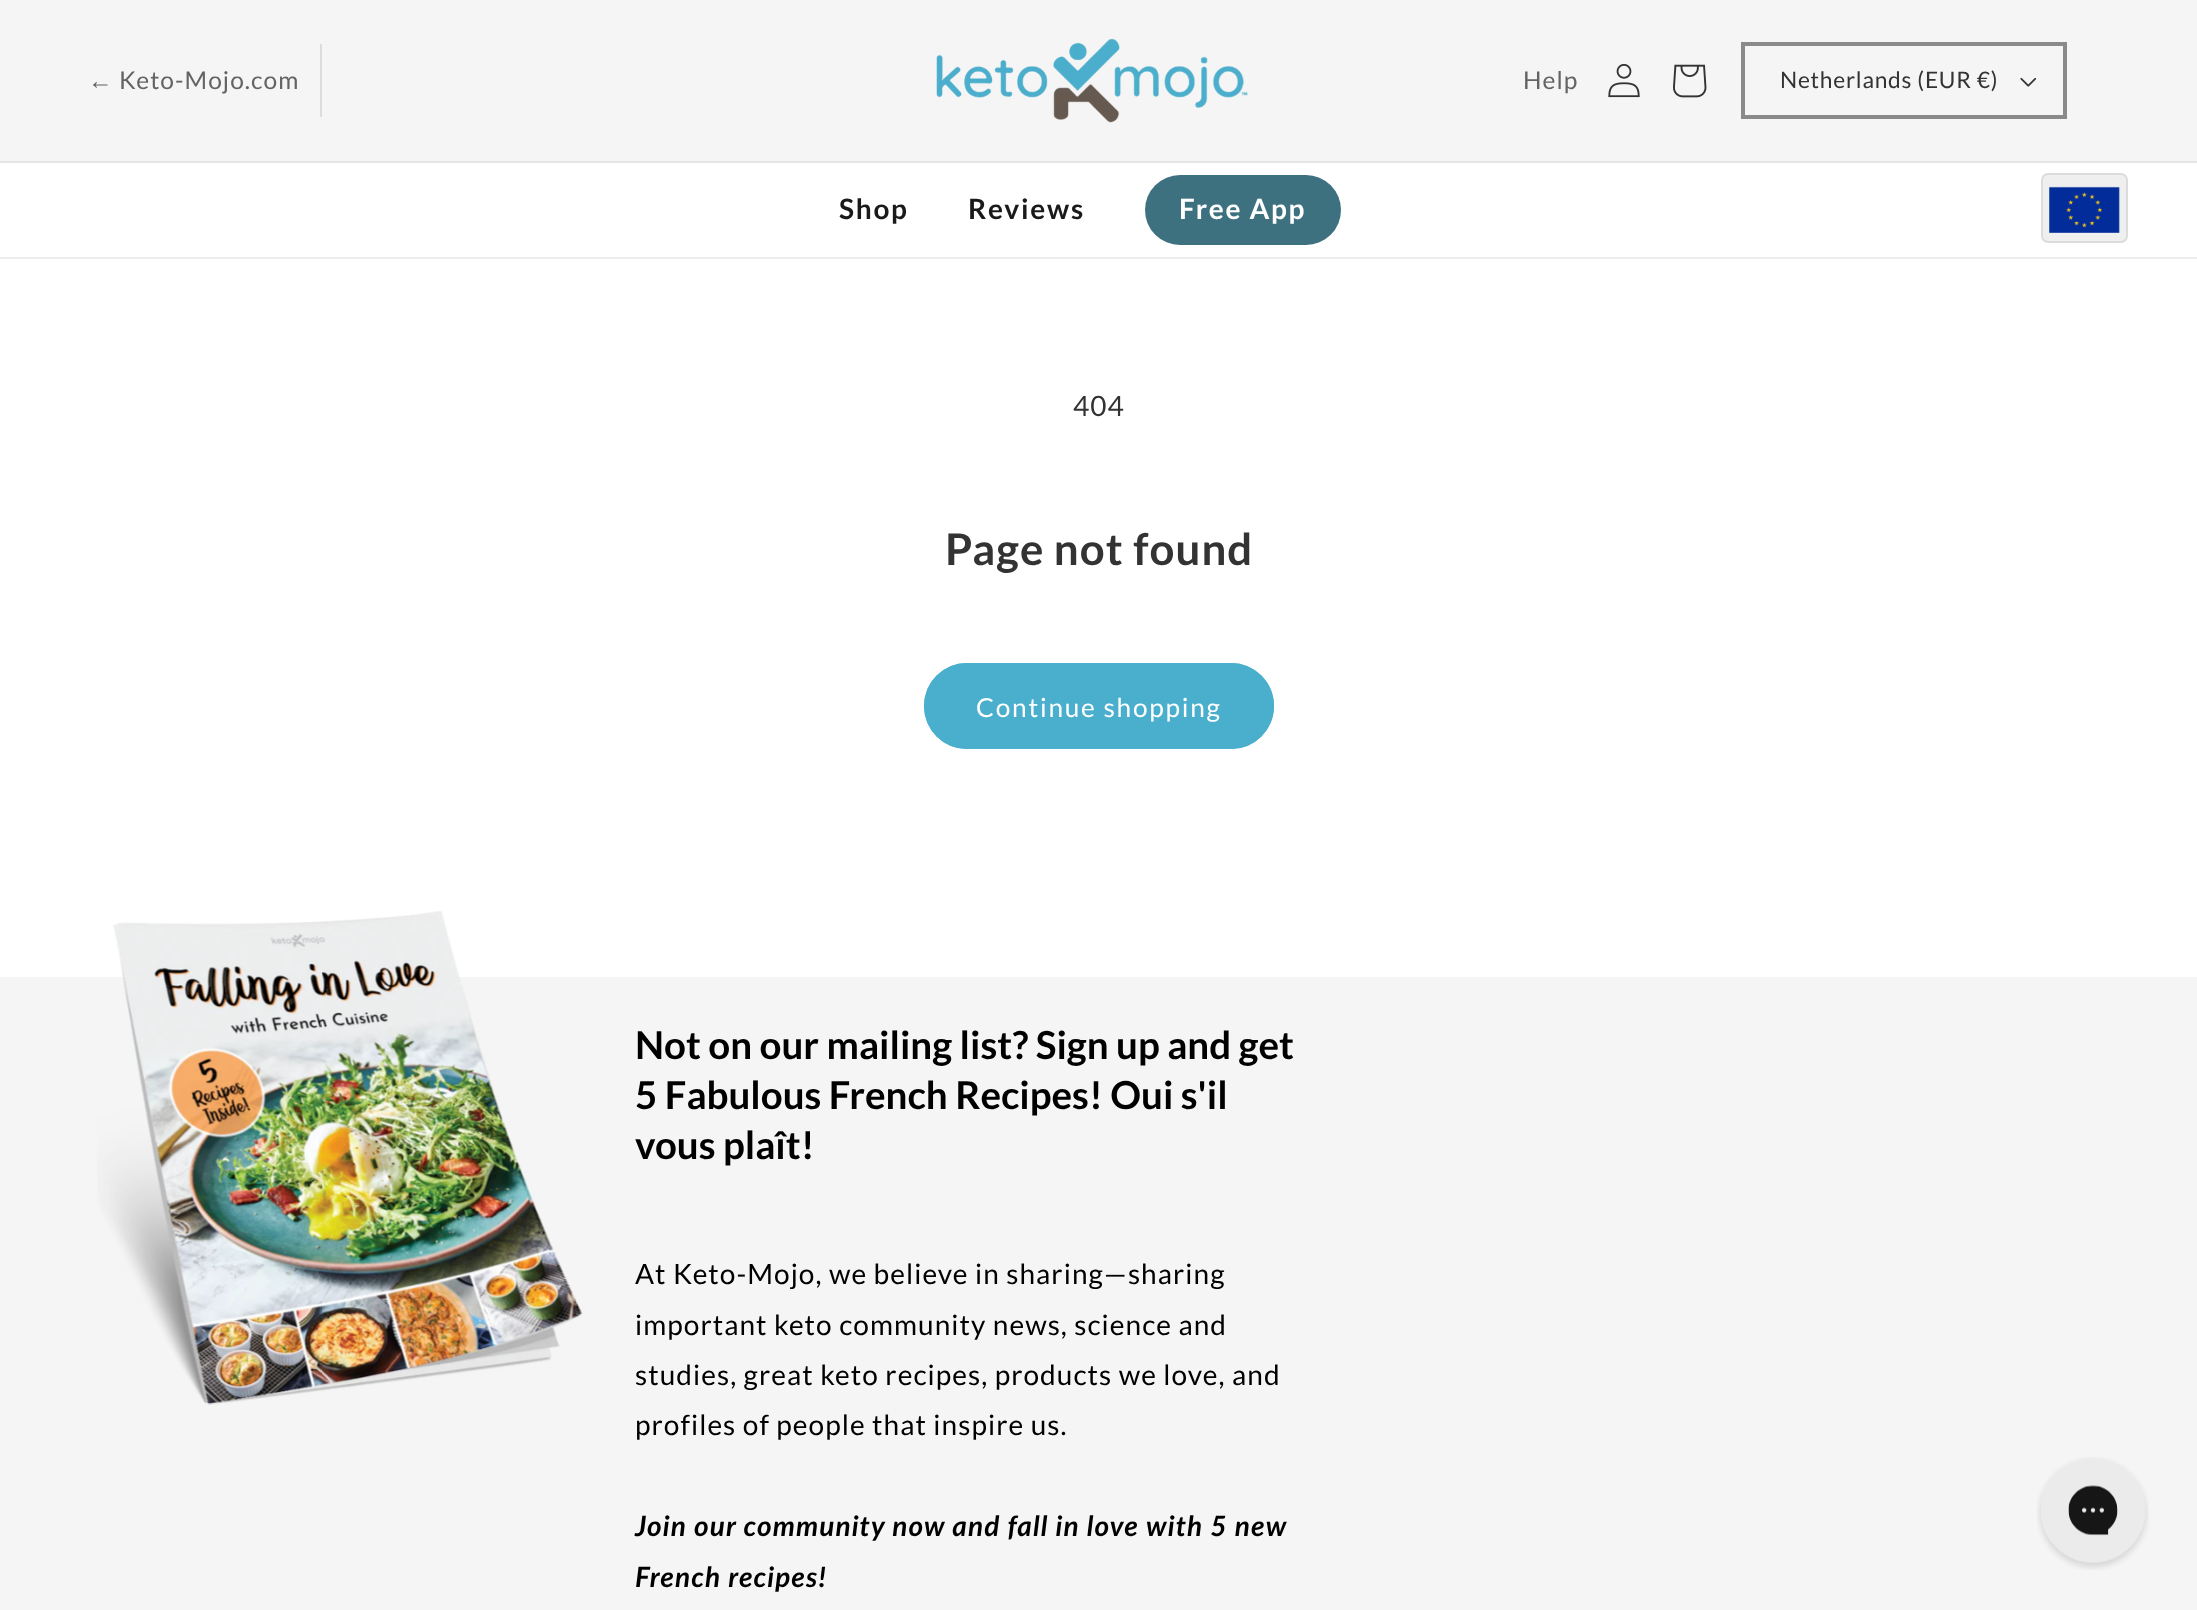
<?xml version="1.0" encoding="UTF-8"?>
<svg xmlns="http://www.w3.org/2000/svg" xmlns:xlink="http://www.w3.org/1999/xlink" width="2197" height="1610">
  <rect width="100%" height="100%" fill="#ffffff" />
  <rect width="2197" height="161" fill="#f5f5f5" />
  <rect y="161" width="2197" height="2" fill="#e5e5e5" />
  <rect x="320" y="44" width="2" height="73" fill="#dcdcdc" />
  <image x="936" y="38" width="312" height="85" xlink:href="image1.png" />
  <image x="1608" y="63" width="32" height="35" xlink:href="image2.png" />
  <image x="1673" y="64" width="34" height="34" xlink:href="image3.png" />
  <image x="2020" y="77" width="17" height="10" xlink:href="image4.png" />
  <rect x="1743" y="44" width="322" height="73" fill="none" stroke="#8a8a8a" stroke-width="4" />
  <rect y="257" width="2197" height="2" fill="#ececec" />
  <rect x="1145" y="175" width="196" height="70" rx="35" fill="#3e7180" />
  <rect x="2042" y="174" width="85" height="68" rx="6" fill="#efefef" stroke="#dcdcdc" stroke-width="2" />
  <image x="2049" y="186" width="71" height="47" xlink:href="image5.png" />
  <rect x="924" y="663" width="350" height="86" rx="43" fill="#4aafcd" />
  <rect x="926" y="665" width="346" height="82" rx="41" fill="none" stroke="#4aafcd" stroke-width="4" />
  <rect y="977" width="2197" height="633" fill="#f5f5f5" />
  <image x="97" y="911" width="486" height="494" xlink:href="image6.png" />
  <image x="2037" y="1457" width="112" height="113" xlink:href="image7.png" />
  <text x="88" y="89" style="font-family: Liberation Sans; font-size: 24.5px; letter-spacing: 1.05px; fill: #646464">←</text>
  <text x="119" y="89" style="font-family: Lato; font-size: 24.5px; letter-spacing: 1.05px; fill: #646464">Keto-Mojo.com</text>
  <text x="1523" y="89" style="font-family: Lato; font-size: 24.5px; letter-spacing: 1.05px; fill: #646464">Help</text>
  <text x="1780" y="88" style="font-family: Lato; font-size: 22.75px; letter-spacing: 0.75px; fill: #333333">Netherlands (EUR €)</text>
  <text x="839" y="219" style="font-family: Lato; font-size: 28px; font-weight: bold; letter-spacing: 1.75px; fill: #1a1a1a">Shop</text>
  <text x="968" y="219" style="font-family: Lato; font-size: 28px; font-weight: bold; letter-spacing: 1.75px; fill: #1a1a1a">Reviews</text>
  <text x="1179" y="219" style="font-family: Lato; font-size: 28px; font-weight: bold; letter-spacing: 1.75px; fill: #ffffff">Free App</text>
  <text x="1073" y="416" style="font-family: Lato; font-size: 28px; letter-spacing: 1.05px; fill: #333333">404</text>
  <text x="945" y="565" style="font-family: Lato; font-size: 43.75px; font-weight: bold; letter-spacing: 1.05px; fill: #333333">Page not found</text>
  <text x="976" y="717" style="font-family: Lato; font-size: 26.25px; letter-spacing: 1.75px; fill: #ffffff">Continue shopping</text>
  <text x="635" y="1059" style="font-family: Lato; font-size: 38.5px; font-weight: bold; fill: #000000">Not on our mailing list? Sign up and get</text>
  <text x="635" y="1109" style="font-family: Lato; font-size: 38.5px; font-weight: bold; fill: #000000">5 Fabulous French Recipes! Oui s'il</text>
  <text x="635" y="1159" style="font-family: Lato; font-size: 38.5px; font-weight: bold; fill: #000000">vous plaît!</text>
  <text x="635" y="1284" style="font-family: Lato; font-size: 28px; letter-spacing: 1.05px; fill: #000000">At Keto-Mojo, we believe in sharing—sharing</text>
  <text x="635" y="1335" style="font-family: Lato; font-size: 28px; letter-spacing: 1.05px; fill: #000000">important keto community news, science and</text>
  <text x="635" y="1385" style="font-family: Lato; font-size: 28px; letter-spacing: 1.05px; fill: #000000">studies, great keto recipes, products we love, and</text>
  <text x="635" y="1435" style="font-family: Lato; font-size: 28px; letter-spacing: 1.05px; fill: #000000">profiles of people that inspire us.</text>
  <text x="635" y="1536" style="font-family: Lato; font-size: 28px; font-weight: bold; font-style: italic; letter-spacing: 1.05px; fill: #000000">Join our community now and fall in love with 5 new</text>
  <text x="635" y="1587" style="font-family: Lato; font-size: 28px; font-weight: bold; font-style: italic; letter-spacing: 1.05px; fill: #000000">French recipes!</text>
</svg>
